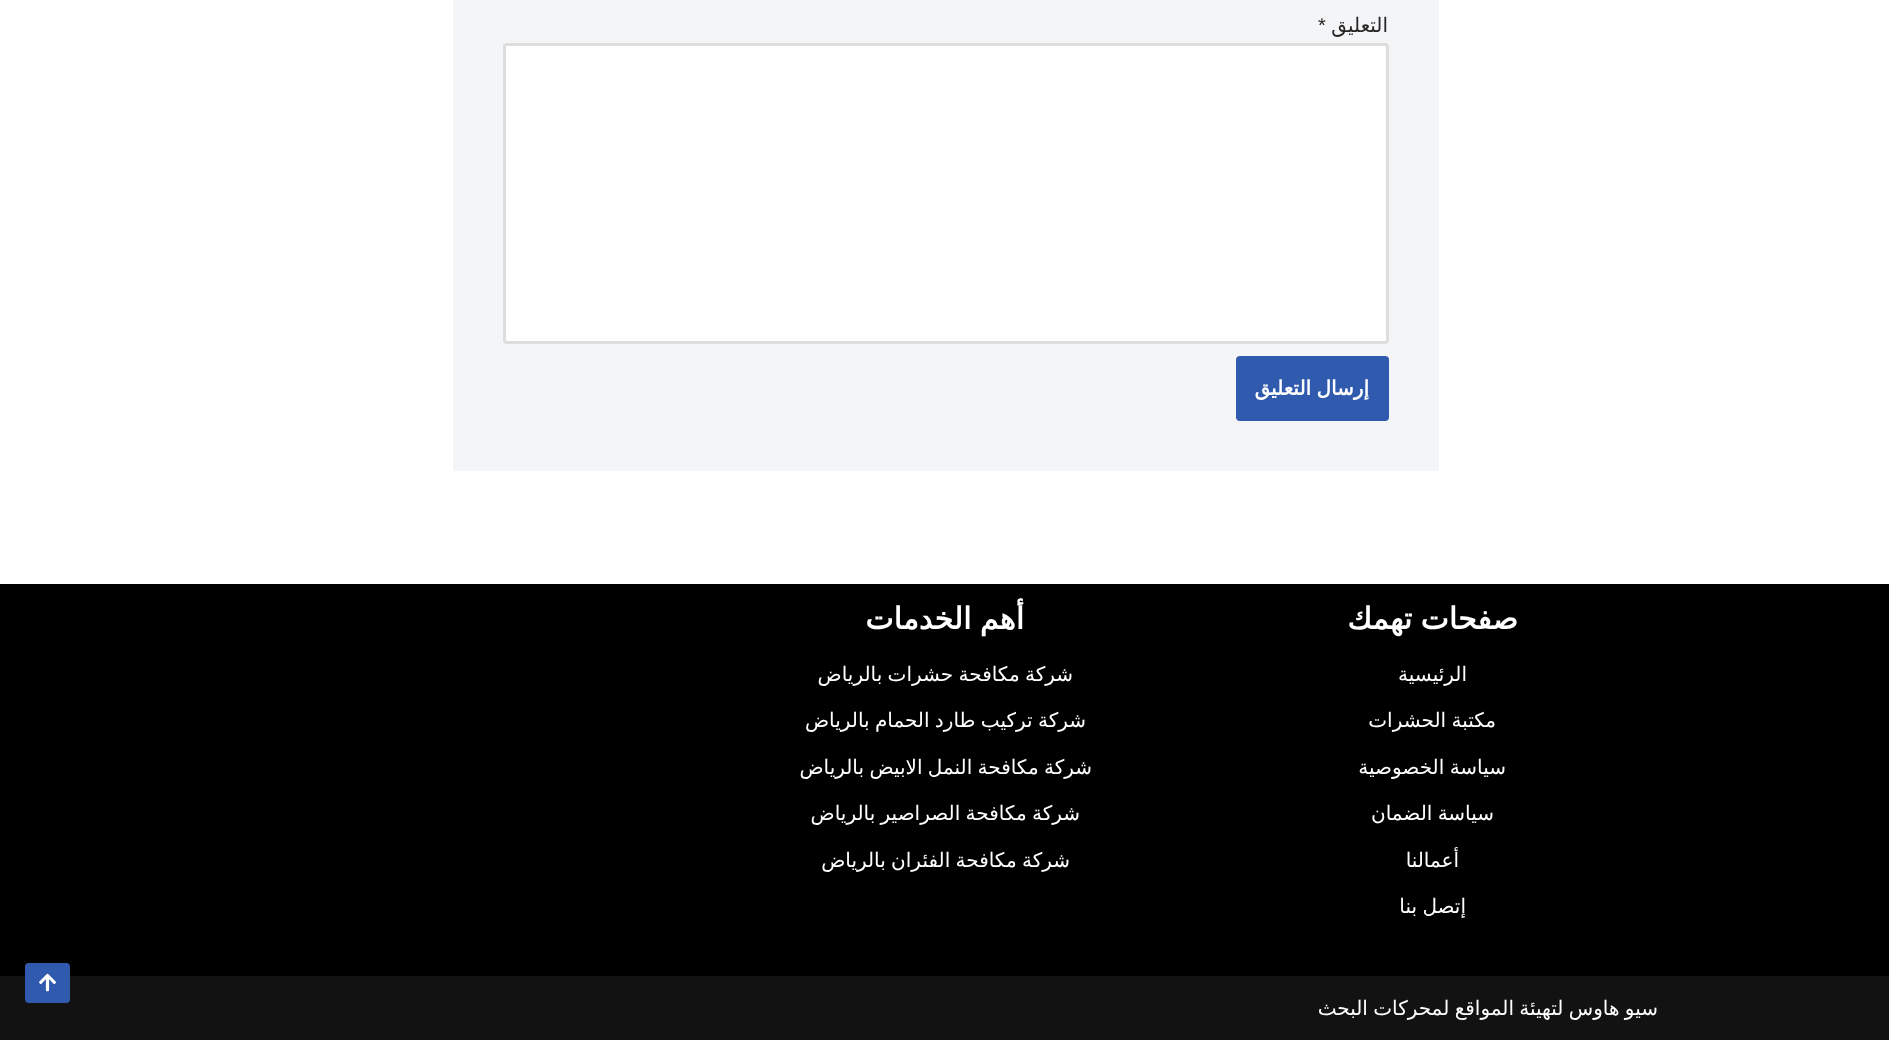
<?xml version="1.0" encoding="UTF-8"?>
<svg xmlns="http://www.w3.org/2000/svg" xmlns:xlink="http://www.w3.org/1999/xlink" width="1889" height="1040">
  <rect width="100%" height="100%" fill="#ffffff" />
  <rect x="453" width="986" height="471" fill="#f4f5f7" />
  <rect x="504.5" y="44.5" width="883" height="298" rx="2.5" fill="#ffffff" stroke="#dddddd" stroke-width="3" />
  <rect x="1236" y="356" width="153" height="65" rx="4" fill="#2f5aae" />
  <rect y="584" width="1889" height="392" fill="#000000" />
  <rect y="976" width="1889" height="64" fill="#121212" />
  <rect x="25" y="963" width="45" height="40" rx="4" fill="#2f5aae" />
  <image x="39" y="973" width="17" height="19" xlink:href="image1.png" />
  <text x="1388" y="32" style="font-family: DejaVu Sans; font-size: 20px; direction: rtl; fill: #272626">التعليق</text>
  <text x="1318" y="32" style="font-family: Liberation Sans; font-size: 20px; fill: #272626">*</text>
  <text x="1369" y="395" word-spacing="-1" style="font-family: DejaVu Sans; font-size: 20px; font-weight: bold; direction: rtl; fill: #ffffff">إرسال التعليق</text>
  <text x="1518" y="629" word-spacing="-1" style="font-family: DejaVu Sans; font-size: 30px; font-weight: bold; direction: rtl; fill: #ffffff">صفحات تهمك</text>
  <text x="1467" y="681" style="font-family: DejaVu Sans; font-size: 20px; direction: rtl; fill: #ffffff">الرئيسية</text>
  <text x="1496" y="727" word-spacing="-1" style="font-family: DejaVu Sans; font-size: 20px; direction: rtl; fill: #ffffff">مكتبة الحشرات</text>
  <text x="1506" y="774" word-spacing="-1" style="font-family: DejaVu Sans; font-size: 20px; direction: rtl; fill: #ffffff">سياسة الخصوصية</text>
  <text x="1494" y="820" word-spacing="-1" style="font-family: DejaVu Sans; font-size: 20px; direction: rtl; fill: #ffffff">سياسة الضمان</text>
  <text x="1459" y="867" style="font-family: DejaVu Sans; font-size: 20px; direction: rtl; fill: #ffffff">أعمالنا</text>
  <text x="1466" y="913" word-spacing="-1" style="font-family: DejaVu Sans; font-size: 20px; direction: rtl; fill: #ffffff">إتصل بنا</text>
  <text x="1024" y="629" word-spacing="-1" style="font-family: DejaVu Sans; font-size: 30px; font-weight: bold; direction: rtl; fill: #ffffff">أهم الخدمات</text>
  <text x="1073" y="681" word-spacing="-1" style="font-family: DejaVu Sans; font-size: 20px; direction: rtl; fill: #ffffff">شركة مكافحة حشرات بالرياض</text>
  <text x="1086" y="727" word-spacing="-1" style="font-family: DejaVu Sans; font-size: 20px; direction: rtl; fill: #ffffff">شركة تركيب طارد الحمام بالرياض</text>
  <text x="1092" y="774" word-spacing="-1" style="font-family: DejaVu Sans; font-size: 20px; direction: rtl; fill: #ffffff">شركة مكافحة النمل الابيض بالرياض</text>
  <text x="1080" y="820" word-spacing="-1" style="font-family: DejaVu Sans; font-size: 20px; direction: rtl; fill: #ffffff">شركة مكافحة الصراصير بالرياض</text>
  <text x="1070" y="867" word-spacing="-1" style="font-family: DejaVu Sans; font-size: 20px; direction: rtl; fill: #ffffff">شركة مكافحة الفئران بالرياض</text>
  <text x="1658" y="1015" word-spacing="-1" style="font-family: DejaVu Sans; font-size: 20px; direction: rtl; fill: #ffffff">سيو هاوس لتهيئة المواقع لمحركات البحث</text>
</svg>
